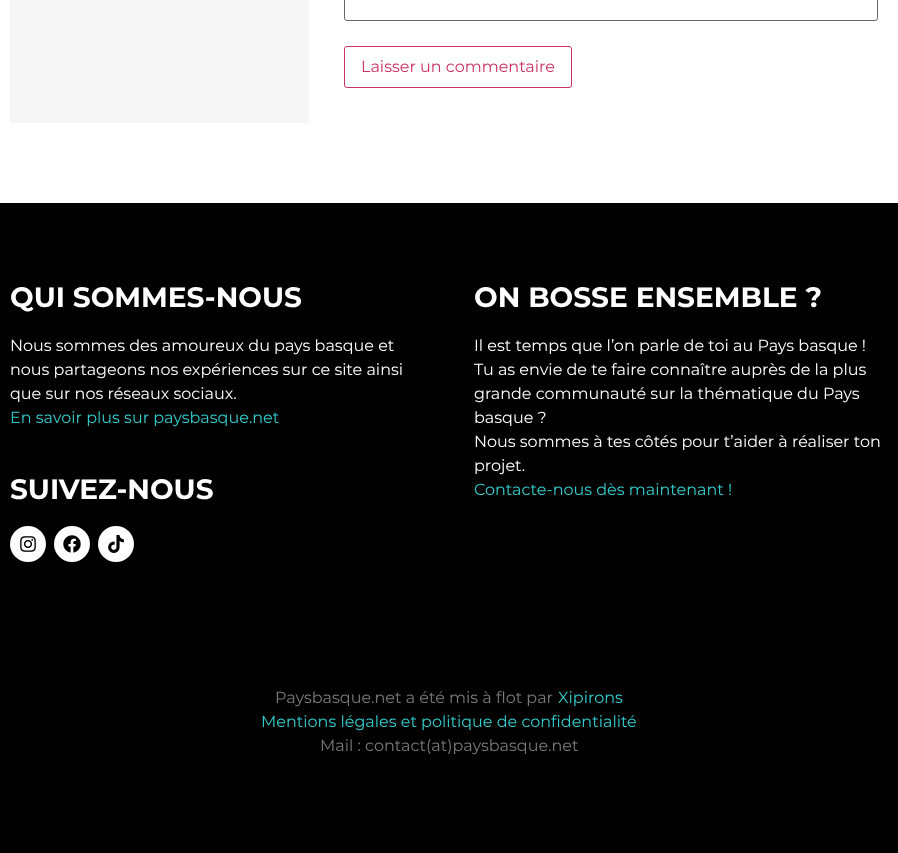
<?xml version="1.0" encoding="UTF-8"?>
<svg xmlns="http://www.w3.org/2000/svg" xmlns:xlink="http://www.w3.org/1999/xlink" width="898" height="853">
  <rect width="100%" height="100%" fill="#ffffff" />
  <rect x="10" width="299" height="123" fill="#f7f6f6" />
  <rect x="344.5" y="-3.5" width="533" height="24" rx="2.5" fill="none" stroke="#666666" />
  <rect x="344.5" y="46.5" width="227" height="41" rx="2.5" fill="none" stroke="#cc3366" />
  <rect y="203" width="898" height="650" fill="#000000" />
  <circle cx="28" cy="544" r="18" fill="#ffffff" />
  <image x="20" y="536" width="16" height="16" xlink:href="image1.png" />
  <circle cx="72" cy="544" r="18" fill="#ffffff" />
  <image x="63" y="535" width="18" height="18" xlink:href="image2.png" />
  <circle cx="116" cy="544" r="18" fill="#ffffff" />
  <image x="108" y="535" width="16" height="18" xlink:href="image3.png" />
  <text x="361" y="72" style="font-family: Montserrat; font-size: 16px; font-weight: 100; fill: #cc3366">Laisser un commentaire</text>
  <text x="10" y="307" style="font-family: 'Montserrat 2'; font-size: 28px; font-weight: 100; fill: #ffffff">QUI SOMMES-NOUS</text>
  <text x="10" y="351" style="font-family: Montserrat; font-size: 16px; font-weight: 100; fill: #ffffff">Nous sommes des amoureux du pays basque et</text>
  <text x="10" y="375" style="font-family: Montserrat; font-size: 16px; font-weight: 100; fill: #ffffff">nous partageons nos expériences sur ce site ainsi</text>
  <text x="10" y="399" style="font-family: Montserrat; font-size: 16px; font-weight: 100; fill: #ffffff">que sur nos réseaux sociaux.</text>
  <text x="10" y="423" style="font-family: Montserrat; font-size: 16px; font-weight: 100; fill: #33cccc">En savoir plus sur paysbasque.net</text>
  <text x="10" y="499" style="font-family: 'Montserrat 2'; font-size: 28px; font-weight: 100; fill: #ffffff">SUIVEZ-NOUS</text>
  <text x="474" y="307" style="font-family: 'Montserrat 2'; font-size: 28px; font-weight: 100; fill: #ffffff">ON BOSSE ENSEMBLE ?</text>
  <text x="474" y="351" style="font-family: Montserrat; font-size: 16px; font-weight: 100; fill: #ffffff">Il est temps que l’on parle de toi au Pays basque !</text>
  <text x="474" y="375" style="font-family: Montserrat; font-size: 16px; font-weight: 100; fill: #ffffff">Tu as envie de te faire connaître auprès de la plus</text>
  <text x="474" y="399" style="font-family: Montserrat; font-size: 16px; font-weight: 100; fill: #ffffff">grande communauté sur la thématique du Pays</text>
  <text x="474" y="423" style="font-family: Montserrat; font-size: 16px; font-weight: 100; fill: #ffffff">basque ?</text>
  <text x="474" y="447" style="font-family: Montserrat; font-size: 16px; font-weight: 100; fill: #ffffff">Nous sommes à tes côtés pour t’aider à réaliser ton</text>
  <text x="474" y="471" style="font-family: Montserrat; font-size: 16px; font-weight: 100; fill: #ffffff">projet.</text>
  <text x="474" y="495" style="font-family: Montserrat; font-size: 16px; font-weight: 100; fill: #33cccc">Contacte-nous dès maintenant !</text>
  <text x="275" y="703" style="font-family: Montserrat; font-size: 16px; font-weight: 100; fill: #7a7a7a">Paysbasque.net a été mis à flot par</text>
  <text x="558" y="703" style="font-family: Montserrat; font-size: 16px; font-weight: 100; fill: #33cccc">Xipirons</text>
  <text x="261" y="727" style="font-family: Montserrat; font-size: 16px; font-weight: 100; fill: #33cccc">Mentions légales et politique de confidentialité</text>
  <text x="320" y="751" style="font-family: Montserrat; font-size: 16px; font-weight: 100; fill: #7a7a7a">Mail : contact(at)paysbasque.net</text>
</svg>
